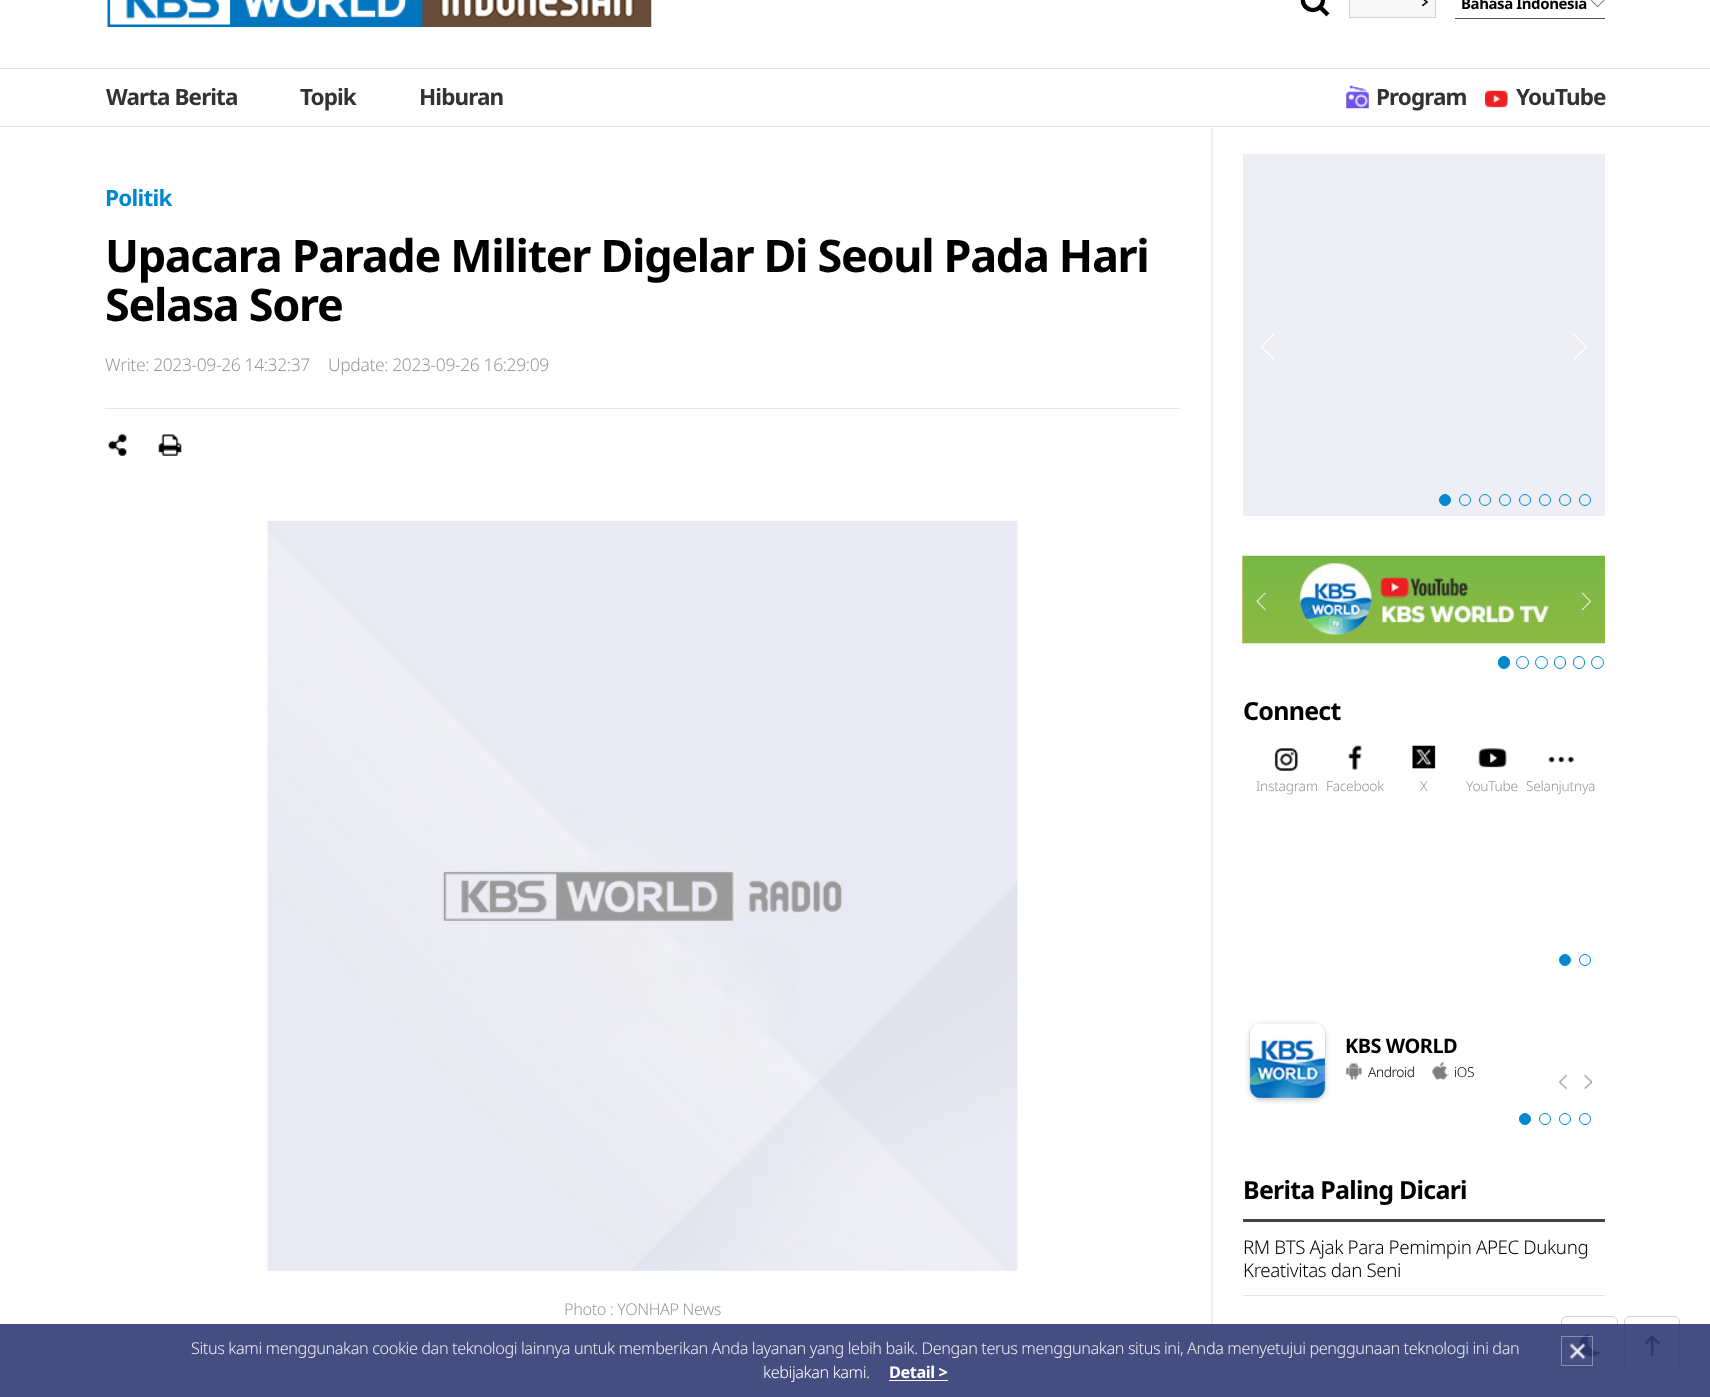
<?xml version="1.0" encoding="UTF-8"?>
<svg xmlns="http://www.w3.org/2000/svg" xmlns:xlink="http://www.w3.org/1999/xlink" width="1710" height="1397">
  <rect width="100%" height="100%" fill="#ffffff" />
  <image x="1211" y="128" width="2" height="1269" xlink:href="image1.png" />
  <image x="107" y="0" width="545" height="27" xlink:href="image2.png" />
  <image x="1300" y="0" width="30" height="17" xlink:href="image3.png" />
  <rect x="1350" width="85" height="17" fill="#f8f8f8" />
  <image x="1422" y="0" width="6" height="7" xlink:href="image4.png" />
  <rect x="1349.5" y="-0.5" width="86" height="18" fill="none" stroke="#d2d2d2" />
  <image x="1590" y="0" width="15" height="8" xlink:href="image5.png" />
  <rect x="1455" y="18" width="150" height="1" fill="#4d5356" />
  <rect y="68" width="1710" height="1" fill="#e5e5e5" />
  <rect y="126" width="1710" height="1" fill="#e5e5e5" />
  <image x="1346" y="85" width="23" height="24" xlink:href="image6.png" />
  <image x="1485" y="90" width="23" height="18" xlink:href="image7.png" />
  <rect x="1243" y="1370" width="320" height="1" fill="#e5e5e5" />
  <rect x="1561.5" y="1316.5" width="56" height="56" rx="5.5" fill="#ffffff" stroke="#ccd1d6" />
  <image x="1579" y="1332" width="22" height="25" xlink:href="image8.png" />
  <rect x="1624.5" y="1316.5" width="55" height="56" rx="5.5" fill="none" stroke="#ccd1d6" />
  <image x="1644" y="1334" width="17" height="22" xlink:href="image9.png" />
  <rect x="105" y="408" width="1075" height="1" fill="#e5e5e5" />
  <image x="108" y="434" width="19" height="22" xlink:href="image10.png" />
  <image x="158" y="434" width="24" height="22" xlink:href="image11.png" />
  <image x="267" y="520" width="751" height="751" xlink:href="image12.png" />
  <rect x="1243" y="154" width="362" height="362" fill="#eeeff4" />
  <image x="1261" y="334" width="13" height="26" xlink:href="image13.png" />
  <image x="1573" y="334" width="14" height="26" xlink:href="image14.png" />
  <circle cx="1445" cy="500" r="5.5" fill="#0088cf" stroke="#0088cf" />
  <circle cx="1465" cy="500" r="5.5" fill="none" stroke="#0088cf" />
  <circle cx="1485" cy="500" r="5.5" fill="none" stroke="#0088cf" />
  <circle cx="1505" cy="500" r="5.5" fill="none" stroke="#0088cf" />
  <circle cx="1525" cy="500" r="5.5" fill="none" stroke="#0088cf" />
  <circle cx="1545" cy="500" r="5.5" fill="none" stroke="#0088cf" />
  <circle cx="1565" cy="500" r="5.5" fill="none" stroke="#0088cf" />
  <circle cx="1585" cy="500" r="5.5" fill="none" stroke="#0088cf" />
  <image x="1242" y="556" width="1" height="88" xlink:href="image16.png" />
  <image x="1242" y="555" width="363" height="89" xlink:href="image15.png" />
  <rect x="1498.5" y="656.5" width="11" height="12" rx="5.5" fill="#0088cf" stroke="#0088cf" />
  <circle cx="1522.5" cy="662.5" r="6" fill="none" stroke="#0088cf" />
  <circle cx="1541.5" cy="662.5" r="6" fill="none" stroke="#0088cf" />
  <rect x="1554.5" y="656.5" width="11" height="12" rx="5.5" fill="none" stroke="#0088cf" />
  <rect x="1573.5" y="656.5" width="11" height="12" rx="5.5" fill="none" stroke="#0088cf" />
  <circle cx="1597.5" cy="662.5" r="6" fill="none" stroke="#0088cf" />
  <image x="1256" y="592" width="11" height="19" xlink:href="image17.png" />
  <image x="1581" y="592" width="11" height="19" xlink:href="image18.png" />
  <image x="1274" y="748" width="24" height="23" xlink:href="image19.png" />
  <image x="1348" y="745" width="14" height="25" xlink:href="image20.png" />
  <image x="1412" y="745" width="24" height="24" xlink:href="image21.png" />
  <image x="1478" y="748" width="29" height="20" xlink:href="image22.png" />
  <image x="1548" y="756" width="26" height="7" xlink:href="image23.png" />
  <circle cx="1565" cy="960" r="5.5" fill="#0088cf" stroke="#0088cf" />
  <circle cx="1585" cy="960" r="5.5" fill="none" stroke="#0088cf" />
  <rect x="1249" y="1024" width="77" height="77" rx="13" fill="#000000" fill-opacity="0.15" filter="blur(2.5px)" />
  <rect x="1249.5" y="1023.5" width="76" height="76" rx="12.5" fill="none" stroke="#dddddd" />
  <image x="1250" y="1023" width="75" height="76" xlink:href="image24.png" />
  <image x="1345" y="1062" width="17" height="18" xlink:href="image25.png" />
  <image x="1432" y="1062" width="17" height="18" xlink:href="image26.png" />
  <image x="1558" y="1074" width="10" height="16" xlink:href="image27.png" />
  <image x="1584" y="1074" width="9" height="16" xlink:href="image28.png" />
  <circle cx="1525" cy="1119" r="5.5" fill="#0088cf" stroke="#0088cf" />
  <circle cx="1545" cy="1119" r="5.5" fill="none" stroke="#0088cf" />
  <circle cx="1565" cy="1119" r="5.5" fill="none" stroke="#0088cf" />
  <circle cx="1585" cy="1119" r="5.5" fill="none" stroke="#0088cf" />
  <rect x="1243" y="1219" width="362" height="3" fill="#444444" />
  <rect x="1243" y="1295" width="362" height="1" fill="#e5e5e5" />
  <rect y="1324" width="1710" height="73" fill="#323a73" fill-opacity="0.9" />
  <rect x="889" y="1380" width="59" height="1" fill="#ffffff" />
  <image x="1569" y="1343" width="17" height="17" xlink:href="image29.png" />
  <rect x="1561.5" y="1336.5" width="31" height="29" fill="none" stroke="#ffffff" stroke-opacity="0.36" />
  <text x="1461" y="9" style="font-family: Noto Sans; font-size: 15px; font-weight: bold; letter-spacing: -0.4px; fill: #000000">Bahasa Indonesia</text>
  <text x="106" y="105" style="font-family: Noto Sans; font-size: 22.5px; font-weight: bold; letter-spacing: -0.9px; fill: #333333">Warta Berita</text>
  <text x="300" y="105" style="font-family: Noto Sans; font-size: 22.5px; font-weight: bold; letter-spacing: -0.9px; fill: #333333">Topik</text>
  <text x="419" y="105" style="font-family: Noto Sans; font-size: 22.5px; font-weight: bold; letter-spacing: -0.9px; fill: #333333">Hiburan</text>
  <text x="1376" y="105" style="font-family: Noto Sans; font-size: 22.5px; font-weight: bold; letter-spacing: -0.9px; fill: #333333">Program</text>
  <text x="1516" y="105" style="font-family: Noto Sans; font-size: 22.5px; font-weight: bold; letter-spacing: -0.9px; fill: #333333">YouTube</text>
  <text x="105" y="206" style="font-family: Noto Sans; font-size: 22.5px; font-weight: bold; letter-spacing: -0.75px; fill: #0088cf">Politik</text>
  <text x="105" y="272" style="font-family: Noto Sans; font-size: 45px; font-weight: bold; letter-spacing: -1.35px; fill: #000000">Upacara Parade Militer Digelar Di Seoul Pada Hari</text>
  <text x="105" y="321" style="font-family: Noto Sans; font-size: 45px; font-weight: bold; letter-spacing: -1.35px; fill: #000000">Selasa Sore</text>
  <text x="105" y="371" style="font-family: Noto Sans; font-size: 17.5px; font-weight: 300; letter-spacing: -0.4px; fill: #9f9699">Write: 2023-09-26 14:32:37</text>
  <text x="328" y="371" style="font-family: Noto Sans; font-size: 17.5px; font-weight: 300; letter-spacing: -0.4px; fill: #9f9699">Update: 2023-09-26 16:29:09</text>
  <text x="564" y="1315" style="font-family: Noto Sans; font-size: 16.25px; font-weight: 300; letter-spacing: -0.4px; fill: #9f9699">Photo : YONHAP News</text>
  <text x="1243" y="720" style="font-family: Noto Sans; font-size: 25px; font-weight: bold; letter-spacing: -0.75px; fill: #000000">Connect</text>
  <text x="1256" y="791" style="font-family: Noto Sans; font-size: 13.75px; font-weight: 300; letter-spacing: -0.25px; fill: #949699">Instagram</text>
  <text x="1326" y="791" style="font-family: Noto Sans; font-size: 13.75px; font-weight: 300; letter-spacing: -0.25px; fill: #949699">Facebook</text>
  <text x="1420" y="791" style="font-family: Noto Sans; font-size: 13.75px; font-weight: 300; letter-spacing: -0.25px; fill: #949699">X</text>
  <text x="1466" y="791" style="font-family: Noto Sans; font-size: 13.75px; font-weight: 300; letter-spacing: -0.25px; fill: #949699">YouTube</text>
  <text x="1526" y="791" style="font-family: Noto Sans; font-size: 13.75px; font-weight: 300; letter-spacing: -0.25px; fill: #949699">Selanjutnya</text>
  <text x="1345" y="1053" style="font-family: Noto Sans; font-size: 20px; font-weight: bold; letter-spacing: -0.5px; fill: #000000">KBS WORLD</text>
  <text x="1368" y="1077" style="font-family: Noto Sans; font-size: 13.75px; font-weight: 300; letter-spacing: -0.4px; fill: #000000">Android</text>
  <text x="1454" y="1077" style="font-family: Noto Sans; font-size: 13.75px; font-weight: 300; letter-spacing: -0.4px; fill: #000000">iOS</text>
  <text x="1243" y="1199" style="font-family: Noto Sans; font-size: 25px; font-weight: bold; letter-spacing: -0.75px; fill: #000000">Berita Paling Dicari</text>
  <text x="1243" y="1254" style="font-family: Noto Sans; font-size: 18.75px; font-weight: 300; letter-spacing: -0.4px; fill: #000000">RM BTS Ajak Para Pemimpin APEC Dukung</text>
  <text x="1243" y="1277" style="font-family: Noto Sans; font-size: 18.75px; font-weight: 300; letter-spacing: -0.4px; fill: #000000">Kreativitas dan Seni</text>
  <text x="191" y="1354" style="font-family: Noto Sans; font-size: 16.25px; font-weight: 300; letter-spacing: -0.4px; fill: #ecedf2">Situs kami menggunakan cookie dan teknologi lainnya untuk memberikan Anda layanan yang lebih baik. Dengan terus menggunakan situs ini, Anda menyetujui penggunaan teknologi ini dan</text>
  <text x="763" y="1378" style="font-family: Noto Sans; font-size: 16.25px; font-weight: 300; letter-spacing: -0.4px; fill: #ffffff">kebijakan kami.</text>
  <text x="889" y="1378" style="font-family: Noto Sans; font-size: 16.25px; font-weight: bold; letter-spacing: -0.4px; fill: #ffffff">Detail &gt;</text>
</svg>
